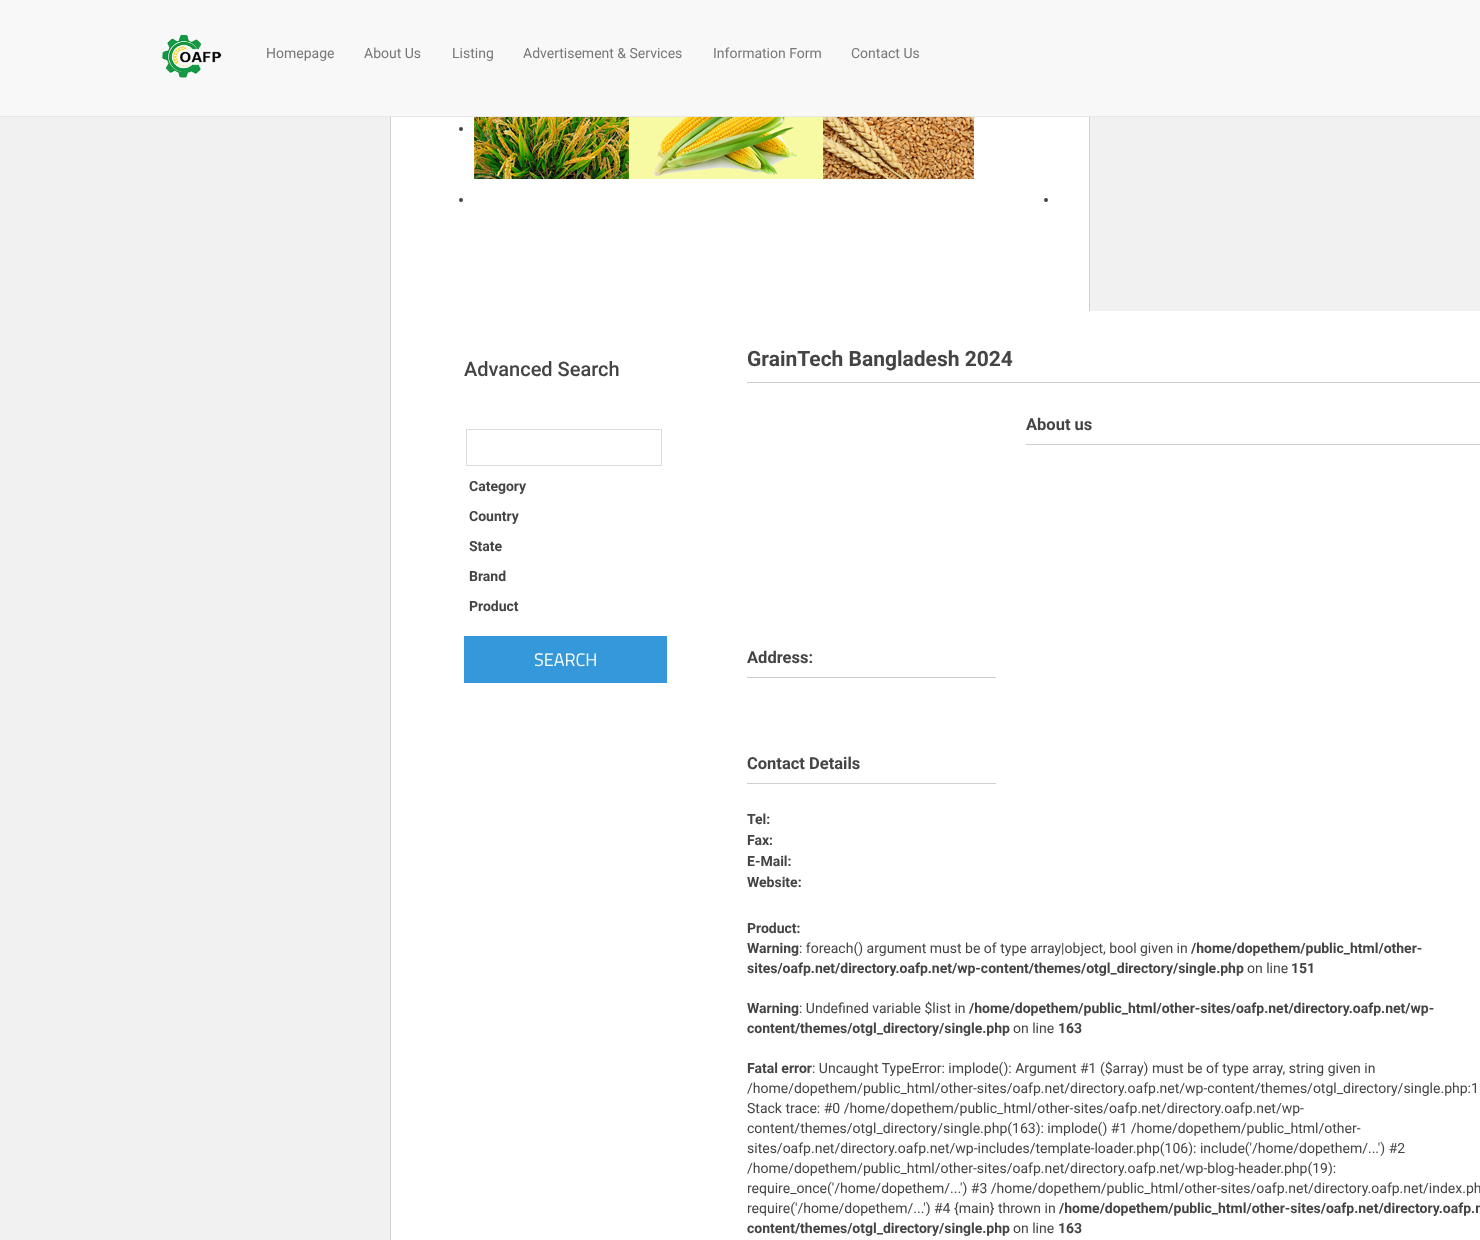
<?xml version="1.0" encoding="UTF-8"?>
<svg xmlns="http://www.w3.org/2000/svg" xmlns:xlink="http://www.w3.org/1999/xlink" width="1480" height="1240">
  <rect width="100%" height="100%" fill="#f1f1f1" />
  <rect x="391" y="117" width="698" height="1123" fill="#ffffff" />
  <rect x="390.5" y="50.5" width="699" height="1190" fill="none" stroke="#ccd0d4" />
  <rect width="1480" height="116" fill="#f8f8f8" />
  <rect y="116" width="1480" height="1" fill="#e7e7e7" />
  <image x="161" y="34" width="61" height="44" xlink:href="image1.png" />
  <circle cx="461" cy="129" r="2" fill="#444444" />
  <image x="474" y="117" width="500" height="62" xlink:href="image2.png" />
  <circle cx="461" cy="200" r="2" fill="#444444" />
  <circle cx="1046" cy="200" r="2" fill="#444444" />
  <rect x="466.5" y="429.5" width="195" height="36" fill="none" stroke="#dddddd" />
  <rect x="464" y="636" width="203" height="47" fill="#3498db" />
  <rect x="1089" y="311" width="391" height="929" fill="#ffffff" />
  <rect x="747" y="382" width="733" height="1" fill="#cfcfcf" />
  <rect x="1026" y="444" width="454" height="1" fill="#cfcfcf" />
  <rect x="747" y="677" width="249" height="1" fill="#cfcfcf" />
  <rect x="747" y="783" width="249" height="1" fill="#cfcfcf" />
  <text x="266" y="58" style="font-family: Roboto; font-size: 14px; fill: #777777">Homepage</text>
  <text x="364" y="58" style="font-family: Roboto; font-size: 14px; fill: #777777">About Us</text>
  <text x="452" y="58" style="font-family: Roboto; font-size: 14px; fill: #777777">Listing</text>
  <text x="523" y="58" style="font-family: Roboto; font-size: 14px; fill: #777777">Advertisement &amp; Services</text>
  <text x="713" y="58" style="font-family: Roboto; font-size: 14px; fill: #777777">Information Form</text>
  <text x="851" y="58" style="font-family: Roboto; font-size: 14px; fill: #777777">Contact Us</text>
  <text x="464" y="376" style="font-family: Roboto; font-size: 20px; font-weight: 500; fill: #444444">Advanced Search</text>
  <text x="469" y="491" style="font-family: Roboto; font-size: 14px; font-weight: bold; fill: #444444">Category</text>
  <text x="469" y="521" style="font-family: Roboto; font-size: 14px; font-weight: bold; fill: #444444">Country</text>
  <text x="469" y="551" style="font-family: Roboto; font-size: 14px; font-weight: bold; fill: #444444">State</text>
  <text x="469" y="581" style="font-family: Roboto; font-size: 14px; font-weight: bold; fill: #444444">Brand</text>
  <text x="469" y="611" style="font-family: Roboto; font-size: 14px; font-weight: bold; fill: #444444">Product</text>
  <text x="534" y="666" style="font-family: Titillium Web; font-size: 18px; fill: #ffffff">SEARCH</text>
  <text x="747" y="366" style="font-family: Roboto; font-size: 21px; font-weight: bold; fill: #444444">GrainTech Bangladesh 2024</text>
  <text x="1026" y="430" style="font-family: Roboto; font-size: 16.5px; font-weight: bold; fill: #444444">About us</text>
  <text x="747" y="663" style="font-family: Roboto; font-size: 16.5px; font-weight: bold; fill: #444444">Address:</text>
  <text x="747" y="769" style="font-family: Roboto; font-size: 16.5px; font-weight: bold; fill: #444444">Contact Details</text>
  <text x="747" y="824" style="font-family: Roboto; font-size: 14px; font-weight: bold; fill: #444444">Tel:</text>
  <text x="747" y="845" style="font-family: Roboto; font-size: 14px; font-weight: bold; fill: #444444">Fax:</text>
  <text x="747" y="866" style="font-family: Roboto; font-size: 14px; font-weight: bold; fill: #444444">E-Mail:</text>
  <text x="747" y="887" style="font-family: Roboto; font-size: 14px; font-weight: bold; fill: #444444">Website:</text>
  <text x="747" y="933" style="font-family: Roboto; font-size: 14px; font-weight: bold; fill: #444444">Product:</text>
  <text x="747" y="953" style="font-family: Roboto; font-size: 14px; font-weight: bold; fill: #444444">Warning</text>
  <text x="799" y="953" style="font-family: Roboto; font-size: 14px; fill: #444444">: foreach() argument must be of type array|object, bool given in</text>
  <text x="1191" y="953" style="font-family: Roboto; font-size: 14px; font-weight: bold; fill: #444444">/home/dopethem/public_html/other-</text>
  <text x="747" y="973" style="font-family: Roboto; font-size: 14px; font-weight: bold; fill: #444444">sites/oafp.net/directory.oafp.net/wp-content/themes/otgl_directory/single.php</text>
  <text x="1247" y="973" style="font-family: Roboto; font-size: 14px; fill: #444444">on line</text>
  <text x="1291" y="973" style="font-family: Roboto; font-size: 14px; font-weight: bold; fill: #444444">151</text>
  <text x="747" y="1013" style="font-family: Roboto; font-size: 14px; font-weight: bold; fill: #444444">Warning</text>
  <text x="799" y="1013" style="font-family: Roboto; font-size: 14px; fill: #444444">: Undefined variable $list in</text>
  <text x="969" y="1013" style="font-family: Roboto; font-size: 14px; font-weight: bold; fill: #444444">/home/dopethem/public_html/other-sites/oafp.net/directory.oafp.net/wp-</text>
  <text x="747" y="1033" style="font-family: Roboto; font-size: 14px; font-weight: bold; fill: #444444">content/themes/otgl_directory/single.php</text>
  <text x="1013" y="1033" style="font-family: Roboto; font-size: 14px; fill: #444444">on line</text>
  <text x="1058" y="1033" style="font-family: Roboto; font-size: 14px; font-weight: bold; fill: #444444">163</text>
  <text x="747" y="1073" style="font-family: Roboto; font-size: 14px; font-weight: bold; fill: #444444">Fatal error</text>
  <text x="812" y="1073" style="font-family: Roboto; font-size: 14px; fill: #444444">: Uncaught TypeError: implode(): Argument #1 ($array) must be of type array, string given in</text>
  <text x="747" y="1093" style="font-family: Roboto; font-size: 14px; fill: #444444">/home/dopethem/public_html/other-sites/oafp.net/directory.oafp.net/wp-content/themes/otgl_directory/single.php:1</text>
  <text x="747" y="1113" style="font-family: Roboto; font-size: 14px; fill: #444444">Stack trace: #0 /home/dopethem/public_html/other-sites/oafp.net/directory.oafp.net/wp-</text>
  <text x="747" y="1133" style="font-family: Roboto; font-size: 14px; fill: #444444">content/themes/otgl_directory/single.php(163): implode() #1 /home/dopethem/public_html/other-</text>
  <text x="747" y="1153" style="font-family: Roboto; font-size: 14px; fill: #444444">sites/oafp.net/directory.oafp.net/wp-includes/template-loader.php(106): include('/home/dopethem/...') #2</text>
  <text x="747" y="1173" style="font-family: Roboto; font-size: 14px; fill: #444444">/home/dopethem/public_html/other-sites/oafp.net/directory.oafp.net/wp-blog-header.php(19):</text>
  <text x="747" y="1193" style="font-family: Roboto; font-size: 14px; fill: #444444">require_once('/home/dopethem/...') #3 /home/dopethem/public_html/other-sites/oafp.net/directory.oafp.net/index.ph</text>
  <text x="747" y="1213" style="font-family: Roboto; font-size: 14px; fill: #444444">require('/home/dopethem/...') #4 {main} thrown in</text>
  <text x="1059" y="1213" style="font-family: Roboto; font-size: 14px; font-weight: bold; fill: #444444">/home/dopethem/public_html/other-sites/oafp.net/directory.oafp.n</text>
  <text x="747" y="1233" style="font-family: Roboto; font-size: 14px; font-weight: bold; fill: #444444">content/themes/otgl_directory/single.php</text>
  <text x="1013" y="1233" style="font-family: Roboto; font-size: 14px; fill: #444444">on line</text>
  <text x="1058" y="1233" style="font-family: Roboto; font-size: 14px; font-weight: bold; fill: #444444">163</text>
</svg>
